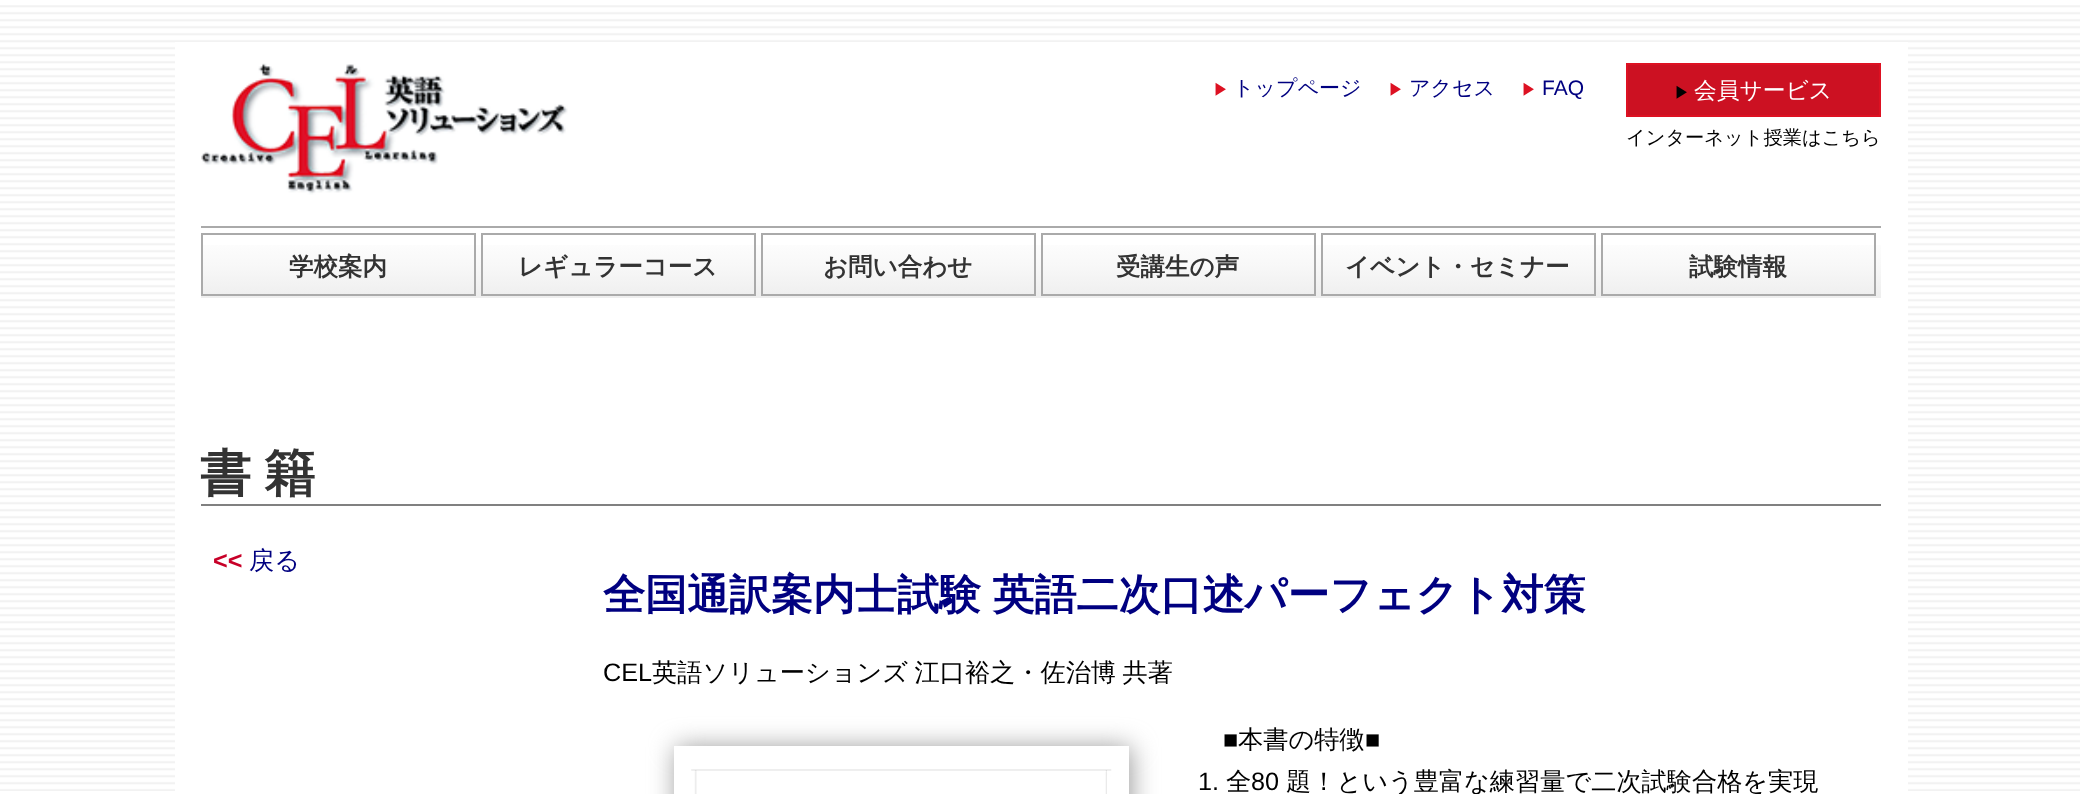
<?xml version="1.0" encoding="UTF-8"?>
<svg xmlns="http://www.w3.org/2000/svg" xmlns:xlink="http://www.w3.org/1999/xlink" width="2080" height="794">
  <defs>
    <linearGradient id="g1" gradientUnits="userSpaceOnUse" x1="1041" y1="233" x2="1041" y2="298"><stop offset="0" stop-color="#ffffff" /><stop offset="0.5" stop-color="#f8f8f8" /><stop offset="1" stop-color="#eeeeee" /></linearGradient>
    <clipPath id="clip1"><path d="M 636 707 h 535 v 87 h -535 z m 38 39 h 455 v 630 h -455 z" clip-rule="evenodd" /></clipPath>
  </defs>
  <rect width="100%" height="100%" fill="#ffffff" />
  <image x="0" y="5" width="2080" height="786" xlink:href="image1.png" />
  <rect x="175" y="42" width="1733" height="749" fill="#ffffff" />
  <rect x="201" y="226" width="1680" height="2" fill="#aaaaaa" />
  <image x="201" y="63" width="367" height="132" xlink:href="image2.png" />
  <rect x="1627" y="64" width="253" height="52" fill="#cc1122" stroke="#dd1122" stroke-width="2" />
  <rect x="201" y="245" width="1680" height="53" fill="url(#g1)" />
  <rect x="202" y="234" width="273" height="61" fill="none" stroke="#aaaaaa" stroke-width="2" />
  <rect x="482" y="234" width="273" height="61" fill="none" stroke="#aaaaaa" stroke-width="2" />
  <rect x="762" y="234" width="273" height="61" fill="none" stroke="#aaaaaa" stroke-width="2" />
  <rect x="1042" y="234" width="273" height="61" fill="none" stroke="#aaaaaa" stroke-width="2" />
  <rect x="1322" y="234" width="273" height="61" fill="none" stroke="#aaaaaa" stroke-width="2" />
  <rect x="1602" y="234" width="273" height="61" fill="none" stroke="#aaaaaa" stroke-width="2" />
  <rect x="201" y="504" width="1680" height="2" fill="#808080" />
  <g clip-path="url(#clip1)">
    <rect x="676" y="747" width="455" height="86" fill="#999999" filter="blur(13px)" />
  </g>
  <image x="691" y="769" width="421" height="25" xlink:href="image3.png" />
  <text x="1213" y="95" style="font-family: WenQuanYi Zen Hei; font-size: 16px; font-weight: 500; fill: #dd1122">▶︎</text>
  <text x="1233" y="95" style="font-family: WenQuanYi Zen Hei; font-size: 21px; font-weight: 500; fill: #000080">トップページ</text>
  <text x="1388" y="95" style="font-family: WenQuanYi Zen Hei; font-size: 16px; font-weight: 500; fill: #dd1122">▶︎</text>
  <text x="1409" y="95" style="font-family: WenQuanYi Zen Hei; font-size: 21px; font-weight: 500; fill: #000080">アクセス</text>
  <text x="1521" y="95" style="font-family: WenQuanYi Zen Hei; font-size: 16px; font-weight: 500; fill: #dd1122">▶︎</text>
  <text x="1542" y="95" style="font-family: Liberation Sans; font-size: 21px; fill: #000080">FAQ</text>
  <text x="1674" y="98" style="font-family: WenQuanYi Zen Hei; font-size: 16px; font-weight: 500; fill: #000000">▶︎</text>
  <text x="1694" y="98" style="font-family: WenQuanYi Zen Hei; font-size: 22.75px; font-weight: 500; fill: #ffffff">会員サービス</text>
  <text x="1626" y="144" style="font-family: WenQuanYi Zen Hei; font-size: 19.25px; font-weight: 500; fill: #000000">インターネット授業はこちら</text>
  <text x="289" y="275" style="font-family: WenQuanYi Zen Hei; font-size: 24.5px; font-weight: bold; fill: #333333">学校案内</text>
  <text x="518" y="275" style="font-family: WenQuanYi Zen Hei; font-size: 24.5px; font-weight: bold; fill: #333333">レギュラーコース</text>
  <text x="823" y="275" style="font-family: WenQuanYi Zen Hei; font-size: 24.5px; font-weight: bold; fill: #333333">お問い合わせ</text>
  <text x="1116" y="275" style="font-family: WenQuanYi Zen Hei; font-size: 24.5px; font-weight: bold; fill: #333333">受講生の声</text>
  <text x="1345" y="275" style="font-family: WenQuanYi Zen Hei; font-size: 24.5px; font-weight: bold; fill: #333333">イベント・セミナー</text>
  <text x="1689" y="275" style="font-family: WenQuanYi Zen Hei; font-size: 24.5px; font-weight: bold; fill: #333333">試験情報</text>
  <text x="200" y="491" word-spacing="-2" style="font-family: WenQuanYi Zen Hei; font-size: 51px; font-weight: bold; fill: #333333">書 籍</text>
  <text x="213" y="569" style="font-family: Liberation Sans; font-size: 25.2px; font-weight: bold; fill: #c80028">&lt;&lt;</text>
  <text x="249" y="569" style="font-family: WenQuanYi Zen Hei; font-size: 25.2px; font-weight: 500; fill: #000080">戻る</text>
  <text x="603" y="609" word-spacing="-1" style="font-family: WenQuanYi Zen Hei; font-size: 42px; font-weight: bold; fill: #000080">全国通訳案内士試験 英語二次口述パーフェクト対策</text>
  <text x="603" y="681" style="font-family: Liberation Sans; font-size: 25.2px; fill: #000000">CEL</text>
  <text x="652" y="681" word-spacing="-1" style="font-family: WenQuanYi Zen Hei; font-size: 25.2px; font-weight: 500; fill: #000000">英語ソリューションズ 江口裕之・佐治博 共著</text>
  <text x="1223" y="748" style="font-family: Liberation Sans; font-size: 25.2px; fill: #000000">■</text>
  <text x="1238" y="748" style="font-family: WenQuanYi Zen Hei; font-size: 25.2px; font-weight: 500; fill: #000000">本書の特徴</text>
  <text x="1365" y="748" style="font-family: Liberation Sans; font-size: 25.2px; fill: #000000">■</text>
  <text x="1198" y="790" style="font-family: Liberation Sans; font-size: 25.2px; fill: #000000">1.</text>
  <text x="1226" y="790" style="font-family: WenQuanYi Zen Hei; font-size: 25.2px; font-weight: 500; fill: #000000">全</text>
  <text x="1251" y="790" style="font-family: Liberation Sans; font-size: 25.2px; fill: #000000">80</text>
  <text x="1286" y="790" style="font-family: WenQuanYi Zen Hei; font-size: 25.2px; font-weight: 500; fill: #000000">題！という豊富な練習量で二次試験合格を実現</text>
</svg>
